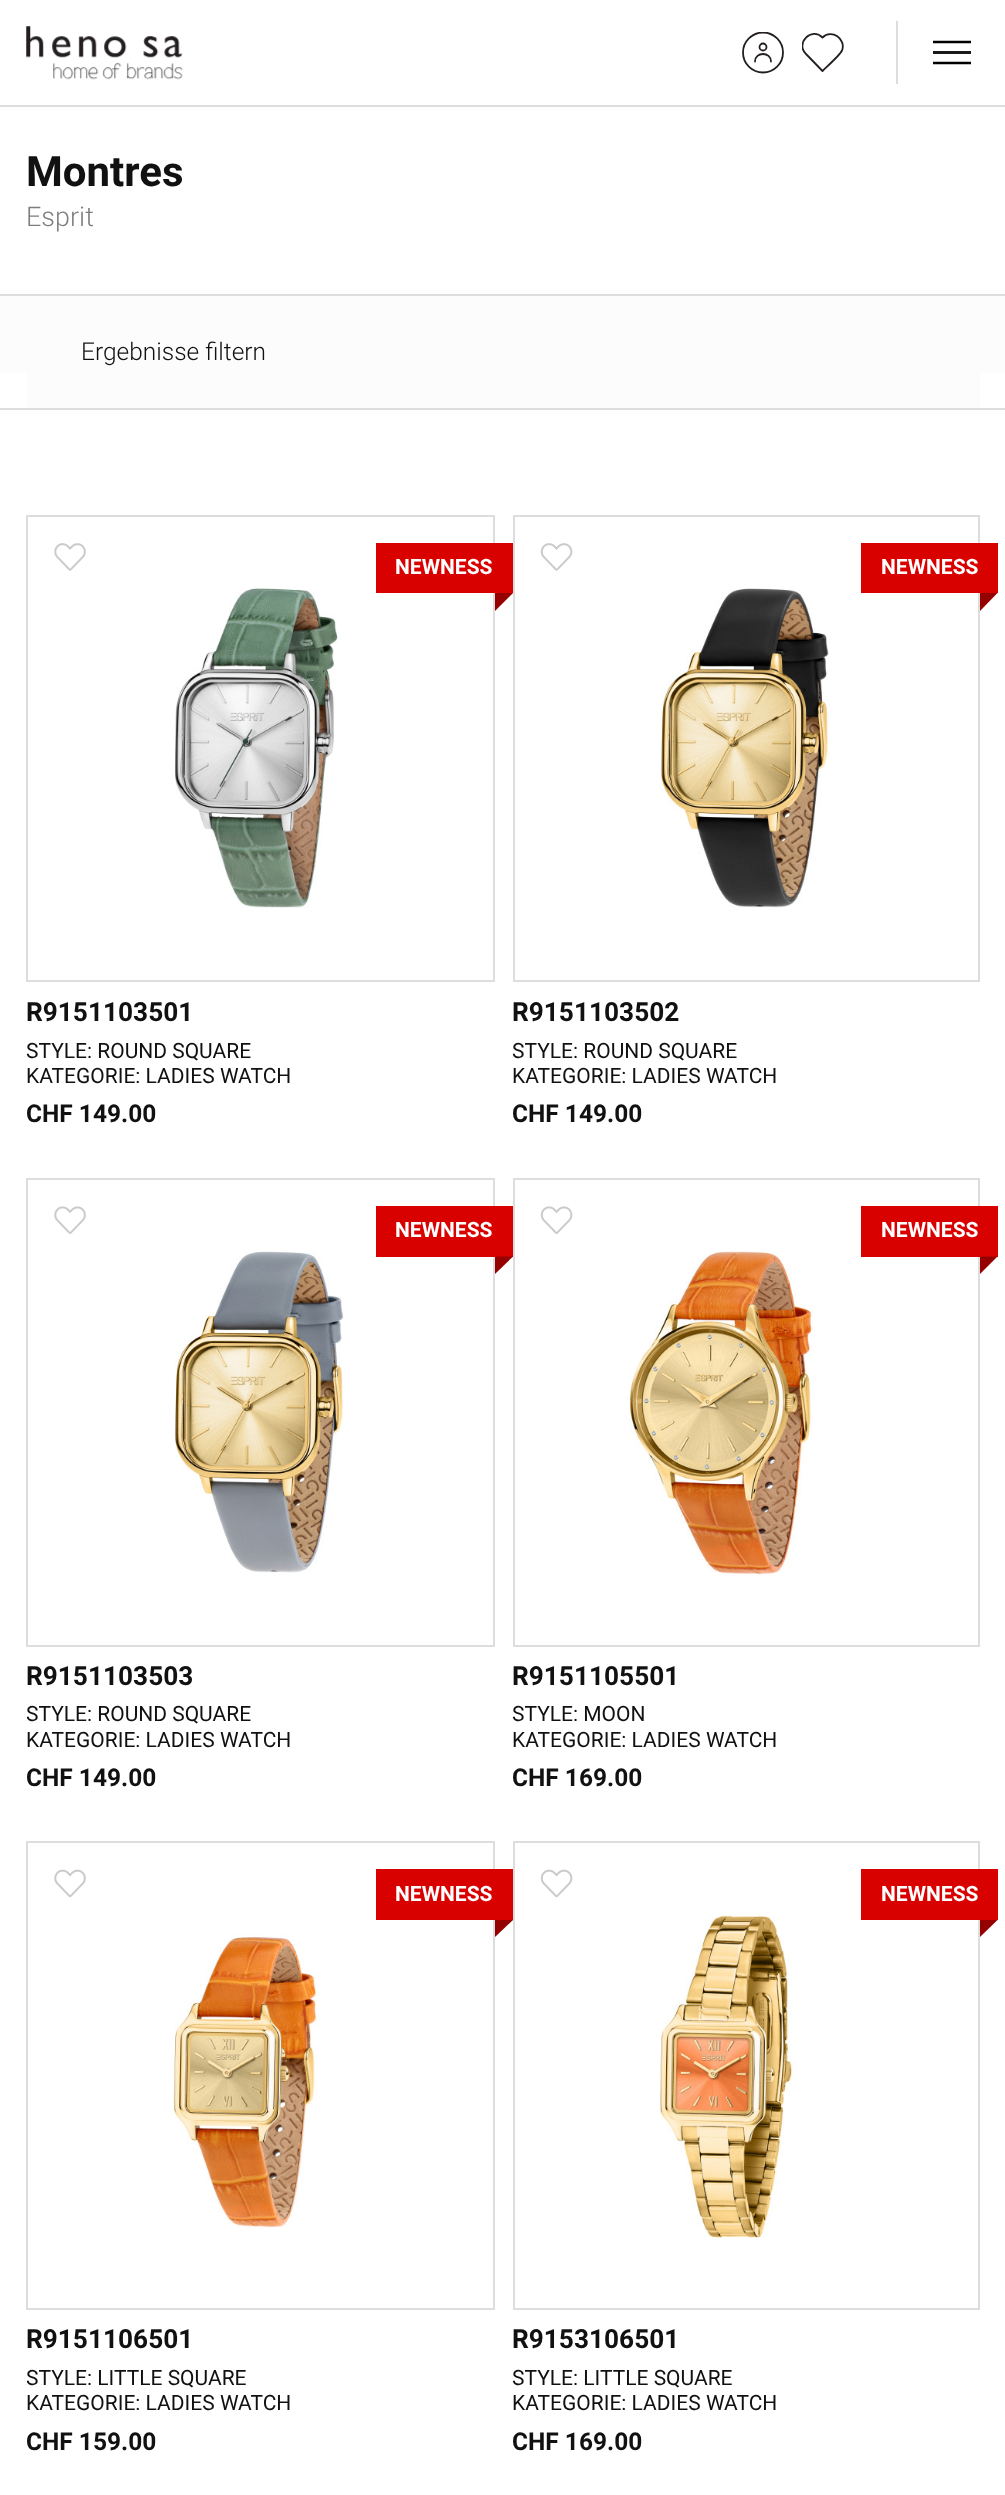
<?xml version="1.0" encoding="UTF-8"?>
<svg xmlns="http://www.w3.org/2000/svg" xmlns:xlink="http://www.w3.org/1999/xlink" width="1005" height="2495">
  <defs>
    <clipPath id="clip1"><rect x="742" y="32" width="42" height="42" /></clipPath>
    <clipPath id="clip2"><rect x="802" y="32" width="42" height="42" /></clipPath>
    <clipPath id="clip3"><rect x="933" y="21" width="38" height="63" /></clipPath>
  </defs>
  <rect width="100%" height="100%" fill="#ffffff" />
  <rect y="105" width="1005" height="2" fill="#dddddd" />
  <image x="26" y="26" width="157" height="54" xlink:href="image1.png" />
  <circle cx="763" cy="47" r="3.5" fill="none" stroke="#231f20" stroke-width="1.8" />
  <path d="M 755 61.5 c 0 -10 16 -10 16 0" fill="none" stroke="#231f20" stroke-width="1.8" stroke-linecap="round" stroke-linejoin="round" />
  <g clip-path="url(#clip1)">
    <circle cx="763" cy="52.5" r="20" fill="none" stroke="#231f20" stroke-width="1.8" />
  </g>
  <g clip-path="url(#clip2)">
    <path d="M 806 54 c -11 -10.5 5.5 -27.5 16.5 -16.5 c 9 -9 24 1.5 19.5 13 c -2.5 5 -15 16 -19.5 20.5 z" fill="none" stroke="#231f20" stroke-width="1.8" stroke-linecap="round" stroke-linejoin="round" />
  </g>
  <g clip-path="url(#clip3)">
    <path d="M 932.5 42 h 39 m -39 21 h 39" fill="none" stroke="#000000" stroke-width="2.7" />
  </g>
  <rect x="933" y="51" width="38" height="3" fill="#1a1a1a" />
  <rect x="896" y="21" width="2" height="63" fill="#dddddd" />
  <rect x="26" y="296" width="954" height="112" fill="#fcfcfc" />
  <rect y="294" width="1005" height="2" fill="#dddddd" />
  <rect y="296" width="26" height="77" fill="#fcfcfc" />
  <rect x="980" y="296" width="25" height="77" fill="#fcfcfc" />
  <rect y="408" width="1005" height="2" fill="#dddddd" />
  <rect x="27" y="516" width="467" height="465" fill="none" stroke="#dddddd" stroke-width="2" />
  <image x="54" y="543" width="32" height="28" xlink:href="image2.png" />
  <rect x="376" y="543" width="137" height="50" fill="#d90000" />
  <path d="M 495 593 h 18 l -18 18 z" fill="#950000" />
  <image x="175" y="588" width="163" height="320" xlink:href="image3.png" />
  <rect x="514" y="516" width="465" height="465" fill="none" stroke="#dddddd" stroke-width="2" />
  <image x="540" y="543" width="33" height="28" xlink:href="image4.png" />
  <rect x="861" y="543" width="137" height="50" fill="#d90000" />
  <path d="M 980 593 h 17.5 l -17.5 18 z" fill="#950000" />
  <image x="661" y="588" width="168" height="320" xlink:href="image5.png" />
  <rect x="27" y="1179" width="467" height="467" fill="none" stroke="#dddddd" stroke-width="2" />
  <image x="54" y="1206" width="32" height="28" xlink:href="image6.png" />
  <rect x="376" y="1206" width="137" height="51" fill="#d90000" />
  <path d="M 495 1256.5 h 18 l -18 17.5 z" fill="#950000" />
  <image x="175" y="1251" width="169" height="322" xlink:href="image7.png" />
  <rect x="514" y="1179" width="465" height="467" fill="none" stroke="#dddddd" stroke-width="2" />
  <image x="540" y="1206" width="33" height="28" xlink:href="image8.png" />
  <rect x="861" y="1206" width="137" height="51" fill="#d90000" />
  <path d="M 980 1256.5 h 17.5 l -17.5 17.5 z" fill="#950000" />
  <image x="629" y="1251" width="186" height="325" xlink:href="image9.png" />
  <rect x="27" y="1842" width="467" height="467" fill="none" stroke="#dddddd" stroke-width="2" />
  <image x="54" y="1869" width="32" height="29" xlink:href="image10.png" />
  <rect x="376" y="1869" width="137" height="51" fill="#d90000" />
  <path d="M 495 1920 h 18 l -18 17 z" fill="#950000" />
  <image x="173" y="1934" width="144" height="295" xlink:href="image11.png" />
  <rect x="514" y="1842" width="465" height="467" fill="none" stroke="#dddddd" stroke-width="2" />
  <image x="540" y="1869" width="33" height="29" xlink:href="image12.png" />
  <rect x="861" y="1869" width="137" height="51" fill="#d90000" />
  <path d="M 980 1920 h 17.5 l -17.5 17 z" fill="#950000" />
  <image x="659" y="1913" width="137" height="325" xlink:href="image13.png" />
  <text x="26" y="186" style="font-family: Roboto; font-size: 42px; font-weight: bold; fill: #111111">Montres</text>
  <text x="26" y="226" style="font-family: Roboto; font-size: 27px; font-weight: 300; fill: #7e7e7e">Esprit</text>
  <text x="81" y="360" style="font-family: Roboto; font-size: 24.5px; font-weight: 300; fill: #111111">Ergebnisse filtern</text>
  <text x="395" y="574" style="font-family: Roboto; font-size: 21px; font-weight: bold; fill: #ffffff">NEWNESS</text>
  <text x="26" y="1021" style="font-family: Roboto; font-size: 26.25px; font-weight: bold; fill: #111111">R9151103501</text>
  <text x="26" y="1058" style="font-family: Roboto; font-size: 21px; fill: #111111">STYLE: ROUND SQUARE</text>
  <text x="26" y="1083" style="font-family: Roboto; font-size: 21px; fill: #111111">KATEGORIE: LADIES WATCH</text>
  <text x="26" y="1122" style="font-family: Roboto; font-size: 24.5px; font-weight: bold; fill: #111111">CHF 149.00</text>
  <text x="881" y="574" style="font-family: Roboto; font-size: 21px; font-weight: bold; fill: #ffffff">NEWNESS</text>
  <text x="512" y="1021" style="font-family: Roboto; font-size: 26.25px; font-weight: bold; fill: #111111">R9151103502</text>
  <text x="512" y="1058" style="font-family: Roboto; font-size: 21px; fill: #111111">STYLE: ROUND SQUARE</text>
  <text x="512" y="1083" style="font-family: Roboto; font-size: 21px; fill: #111111">KATEGORIE: LADIES WATCH</text>
  <text x="512" y="1122" style="font-family: Roboto; font-size: 24.5px; font-weight: bold; fill: #111111">CHF 149.00</text>
  <text x="395" y="1237" style="font-family: Roboto; font-size: 21px; font-weight: bold; fill: #ffffff">NEWNESS</text>
  <text x="26" y="1685" style="font-family: Roboto; font-size: 26.25px; font-weight: bold; fill: #111111">R9151103503</text>
  <text x="26" y="1721" style="font-family: Roboto; font-size: 21px; fill: #111111">STYLE: ROUND SQUARE</text>
  <text x="26" y="1747" style="font-family: Roboto; font-size: 21px; fill: #111111">KATEGORIE: LADIES WATCH</text>
  <text x="26" y="1786" style="font-family: Roboto; font-size: 24.5px; font-weight: bold; fill: #111111">CHF 149.00</text>
  <text x="881" y="1237" style="font-family: Roboto; font-size: 21px; font-weight: bold; fill: #ffffff">NEWNESS</text>
  <text x="512" y="1685" style="font-family: Roboto; font-size: 26.25px; font-weight: bold; fill: #111111">R9151105501</text>
  <text x="512" y="1721" style="font-family: Roboto; font-size: 21px; fill: #111111">STYLE: MOON</text>
  <text x="512" y="1747" style="font-family: Roboto; font-size: 21px; fill: #111111">KATEGORIE: LADIES WATCH</text>
  <text x="512" y="1786" style="font-family: Roboto; font-size: 24.5px; font-weight: bold; fill: #111111">CHF 169.00</text>
  <text x="395" y="1901" style="font-family: Roboto; font-size: 21px; font-weight: bold; fill: #ffffff">NEWNESS</text>
  <text x="26" y="2348" style="font-family: Roboto; font-size: 26.25px; font-weight: bold; fill: #111111">R9151106501</text>
  <text x="26" y="2385" style="font-family: Roboto; font-size: 21px; fill: #111111">STYLE: LITTLE SQUARE</text>
  <text x="26" y="2410" style="font-family: Roboto; font-size: 21px; fill: #111111">KATEGORIE: LADIES WATCH</text>
  <text x="26" y="2450" style="font-family: Roboto; font-size: 24.5px; font-weight: bold; fill: #111111">CHF 159.00</text>
  <text x="881" y="1901" style="font-family: Roboto; font-size: 21px; font-weight: bold; fill: #ffffff">NEWNESS</text>
  <text x="512" y="2348" style="font-family: Roboto; font-size: 26.25px; font-weight: bold; fill: #111111">R9153106501</text>
  <text x="512" y="2385" style="font-family: Roboto; font-size: 21px; fill: #111111">STYLE: LITTLE SQUARE</text>
  <text x="512" y="2410" style="font-family: Roboto; font-size: 21px; fill: #111111">KATEGORIE: LADIES WATCH</text>
  <text x="512" y="2450" style="font-family: Roboto; font-size: 24.5px; font-weight: bold; fill: #111111">CHF 169.00</text>
</svg>
